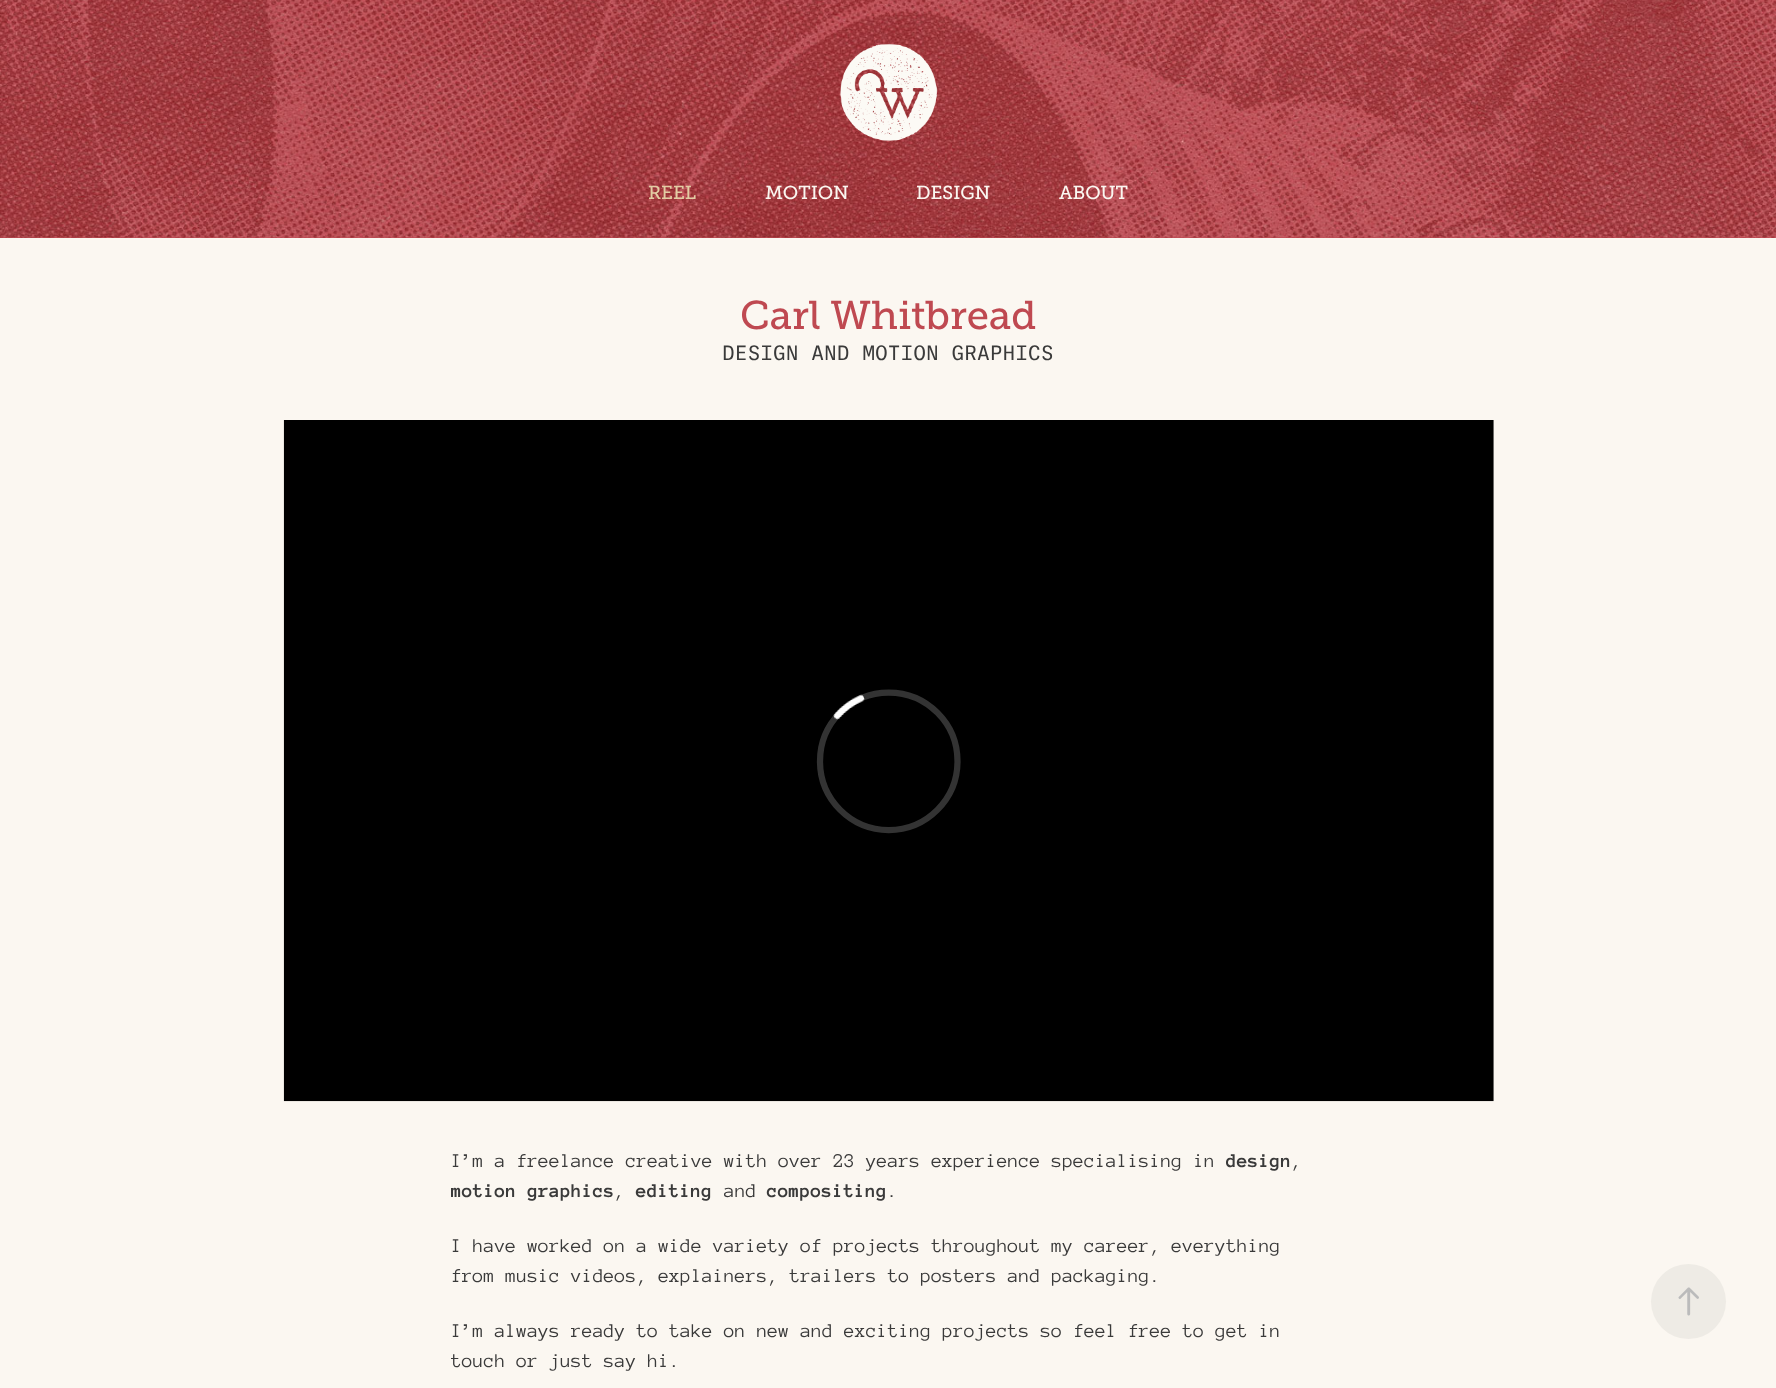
<?xml version="1.0" encoding="UTF-8"?>
<svg xmlns="http://www.w3.org/2000/svg" xmlns:xlink="http://www.w3.org/1999/xlink" width="1776" height="1388">
  <rect width="100%" height="100%" fill="#fbf7f1" />
  <rect y="237" width="1776" height="1" fill="#bf4951" />
  <image x="0" y="0" width="1776" height="238" xlink:href="image1.png" />
  <image x="840" y="44" width="98" height="97" xlink:href="image2.png" />
  <image x="283" y="420" width="1211" height="682" xlink:href="image3.png" />
  <circle cx="1688.5" cy="1301.5" r="37.5" fill="#eeebe5" />
  <image x="1678" y="1287" width="21" height="29" xlink:href="image4.png" />
  <text x="648" y="199" style="font-family: Museo Slab; font-size: 18.75px; fill: #e3cda4">REEL</text>
  <text x="765" y="199" style="font-family: Museo Slab; font-size: 18.75px; fill: #fbf7f1">MOTION</text>
  <text x="916" y="199" style="font-family: Museo Slab; font-size: 18.75px; fill: #fbf7f1">DESIGN</text>
  <text x="1059" y="199" style="font-family: Museo Slab; font-size: 18.75px; fill: #fbf7f1">ABOUT</text>
  <text x="740" y="329" style="font-family: Museo Slab; font-size: 40px; fill: #bf4951">Carl Whitbread</text>
  <text x="722" y="360" style="font-family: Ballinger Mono; font-size: 21.25px; fill: #3a3a3a">DESIGN AND MOTION GRAPHICS</text>
  <text x="451" y="1167" style="font-family: Anonymous Pro; font-size: 20px; fill: #3a3a3a">I’m a freelance creative with over 23 years experience specialising in</text>
  <text x="1226" y="1167" style="font-family: Anonymous Pro; font-size: 20px; font-weight: bold; fill: #3a3a3a">design</text>
  <text x="1291" y="1167" style="font-family: Anonymous Pro; font-size: 20px; fill: #3a3a3a">,</text>
  <text x="451" y="1197" style="font-family: Anonymous Pro; font-size: 20px; font-weight: bold; fill: #3a3a3a">motion graphics</text>
  <text x="614" y="1197" style="font-family: Anonymous Pro; font-size: 20px; fill: #3a3a3a">,</text>
  <text x="636" y="1197" style="font-family: Anonymous Pro; font-size: 20px; font-weight: bold; fill: #3a3a3a">editing</text>
  <text x="724" y="1197" style="font-family: Anonymous Pro; font-size: 20px; fill: #3a3a3a">and</text>
  <text x="767" y="1197" style="font-family: Anonymous Pro; font-size: 20px; font-weight: bold; fill: #3a3a3a">compositing</text>
  <text x="887" y="1197" style="font-family: Anonymous Pro; font-size: 20px; fill: #3a3a3a">.</text>
  <text x="451" y="1252" style="font-family: Anonymous Pro; font-size: 20px; fill: #3a3a3a">I have worked on a wide variety of projects throughout my career, everything</text>
  <text x="451" y="1282" style="font-family: Anonymous Pro; font-size: 20px; fill: #3a3a3a">from music videos, explainers, trailers to posters and packaging.</text>
  <text x="451" y="1337" style="font-family: Anonymous Pro; font-size: 20px; fill: #3a3a3a">I’m always ready to take on new and exciting projects so feel free to get in</text>
  <text x="451" y="1367" style="font-family: Anonymous Pro; font-size: 20px; fill: #3a3a3a">touch or just say hi.</text>
</svg>
